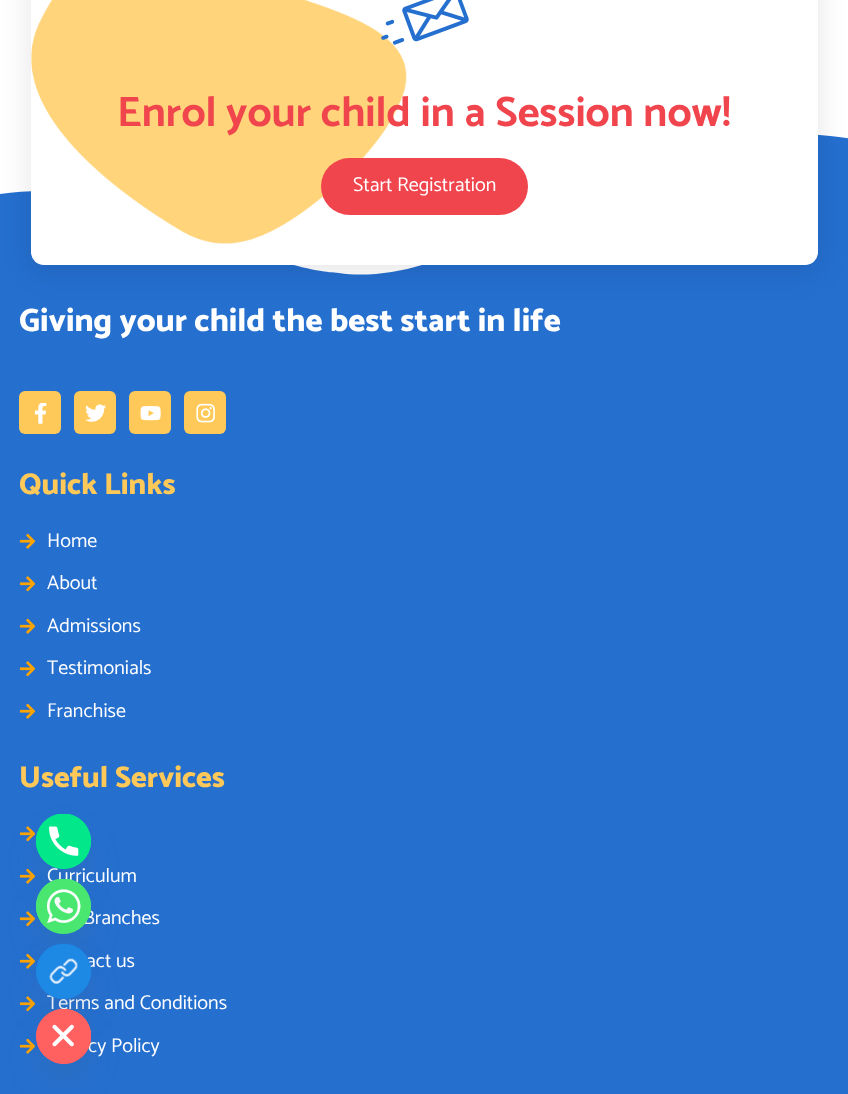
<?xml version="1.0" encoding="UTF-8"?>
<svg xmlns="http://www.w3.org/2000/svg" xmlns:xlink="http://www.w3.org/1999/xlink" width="848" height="1094">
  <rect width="100%" height="100%" fill="#ffffff" />
  <rect y="135" width="848" height="959" fill="#256fcf" />
  <path d="M 746 137 c -66 8 -129 27 -213 75 c -33 19 -85 46 -111 53 c -26 8 -58 12 -83 8 c -12 -1 -25 -2 -56 -11 c -30 -9 -64 -25 -87 -37 c -46 -24 -105 -33 -148 -34 c -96 -2 -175 47 -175 47 v -112 h 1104 v 52 c 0 0 -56 -29 -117 -38 c -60 -9 -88 -7 -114 -3 z" fill="#ffffff" />
  <rect x="31" y="-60" width="787" height="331" rx="13" fill="#000000" fill-opacity="0.1" filter="blur(15.5px)" />
  <rect x="31" y="-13" width="787" height="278" rx="13" fill="#ffffff" />
  <image x="31" y="0" width="376" height="244" xlink:href="image1.png" />
  <image x="381" y="0" width="88" height="45" xlink:href="image2.png" />
  <rect x="321" y="158" width="207" height="57" rx="28.5" fill="#f1454e" />
  <rect x="19" y="391" width="42" height="43" rx="6" fill="#ffc95a" />
  <image x="34" y="403" width="13" height="21" xlink:href="image3.png" />
  <rect x="74" y="391" width="42" height="43" rx="6" fill="#ffc95a" />
  <image x="85" y="404" width="21" height="18" xlink:href="image4.png" />
  <rect x="129" y="391" width="42" height="43" rx="6" fill="#ffc95a" />
  <image x="140" y="406" width="21" height="15" xlink:href="image5.png" />
  <rect x="184" y="391" width="42" height="43" rx="6" fill="#ffc95a" />
  <image x="196" y="403" width="19" height="20" xlink:href="image6.png" />
  <image x="19" y="533" width="17" height="16" xlink:href="image7.png" />
  <image x="19" y="576" width="17" height="16" xlink:href="image8.png" />
  <image x="19" y="618" width="17" height="16" xlink:href="image7.png" />
  <image x="19" y="661" width="17" height="16" xlink:href="image8.png" />
  <image x="19" y="703" width="17" height="16" xlink:href="image7.png" />
  <image x="19" y="826" width="17" height="16" xlink:href="image8.png" />
  <image x="19" y="868" width="17" height="16" xlink:href="image7.png" />
  <image x="19" y="911" width="17" height="16" xlink:href="image8.png" />
  <image x="19" y="953" width="17" height="16" xlink:href="image7.png" />
  <image x="19" y="996" width="17" height="16" xlink:href="image8.png" />
  <image x="19" y="1038" width="17" height="16" xlink:href="image7.png" />
  <rect x="36" y="834" width="55" height="55" rx="27.5" fill="#49687e" fill-opacity="0.16" filter="blur(15px)" />
  <text x="117" y="126" style="font-family: Catamaran; font-size: 42.5px; font-weight: bold; fill: #f1454e">Enrol your child in a Session now!</text>
  <text x="353" y="191" style="font-family: Catamaran; font-size: 20px; fill: #ffffff">Start Registration</text>
  <text x="19" y="331" style="font-family: Catamaran; font-size: 32.5px; font-weight: 800; fill: #ffffff">Giving your child the best start in life</text>
  <text x="19" y="494" style="font-family: Catamaran; font-size: 30px; font-weight: 800; fill: #ffc95a">Quick Links</text>
  <text x="47" y="547" style="font-family: Catamaran; font-size: 20px; fill: #ffffff">Home</text>
  <text x="47" y="589" style="font-family: Catamaran; font-size: 20px; fill: #ffffff">About</text>
  <text x="47" y="632" style="font-family: Catamaran; font-size: 20px; fill: #ffffff">Admissions</text>
  <text x="47" y="674" style="font-family: Catamaran; font-size: 20px; fill: #ffffff">Testimonials</text>
  <text x="47" y="717" style="font-family: Catamaran; font-size: 20px; fill: #ffffff">Franchise</text>
  <text x="19" y="787" style="font-family: Catamaran; font-size: 30px; font-weight: 800; fill: #ffc95a">Useful Services</text>
  <text x="47" y="882" style="font-family: Catamaran; font-size: 20px; fill: #ffffff">Curriculum</text>
  <text x="83" y="924" style="font-family: Catamaran; font-size: 20px; fill: #ffffff">Branches</text>
  <text x="86" y="967" style="font-family: Catamaran; font-size: 20px; fill: #ffffff">act us</text>
  <text x="47" y="1009" style="font-family: Catamaran; font-size: 20px; fill: #ffffff">Terms and Conditions</text>
  <text x="88" y="1052" style="font-family: Catamaran; font-size: 20px; fill: #ffffff">cy Policy</text>
  <circle cx="63.5" cy="841.5" r="27.5" fill="#03e78b" />
  <image x="36" y="814" width="55" height="55" xlink:href="image9.png" />
  <rect x="36" y="899" width="55" height="55" rx="27.5" fill="#49687e" fill-opacity="0.16" filter="blur(15px)" />
  <circle cx="63.5" cy="906.5" r="27.5" fill="#49e670" />
  <image x="36" y="879" width="55" height="55" xlink:href="image10.png" />
  <rect x="36" y="964" width="55" height="55" rx="27.5" fill="#49687e" fill-opacity="0.16" filter="blur(15px)" />
  <circle cx="63.5" cy="971.5" r="27.5" fill="#1e88e5" />
  <image x="36" y="943" width="56" height="54" xlink:href="image11.png" />
  <rect x="36" y="1029" width="55" height="55" rx="27.5" fill="#49687e" fill-opacity="0.16" filter="blur(15px)" />
  <path d="M 64 1064 c -15 0 -28 -13 -28 -28 c 0 -15 13 -27 28 -27 c 15 0 27 12 27 27 c 0 15 -12 28 -27 28 z" fill="#ff6060" />
  <image x="36" y="1009" width="55" height="55" xlink:href="image12.png" />
</svg>
